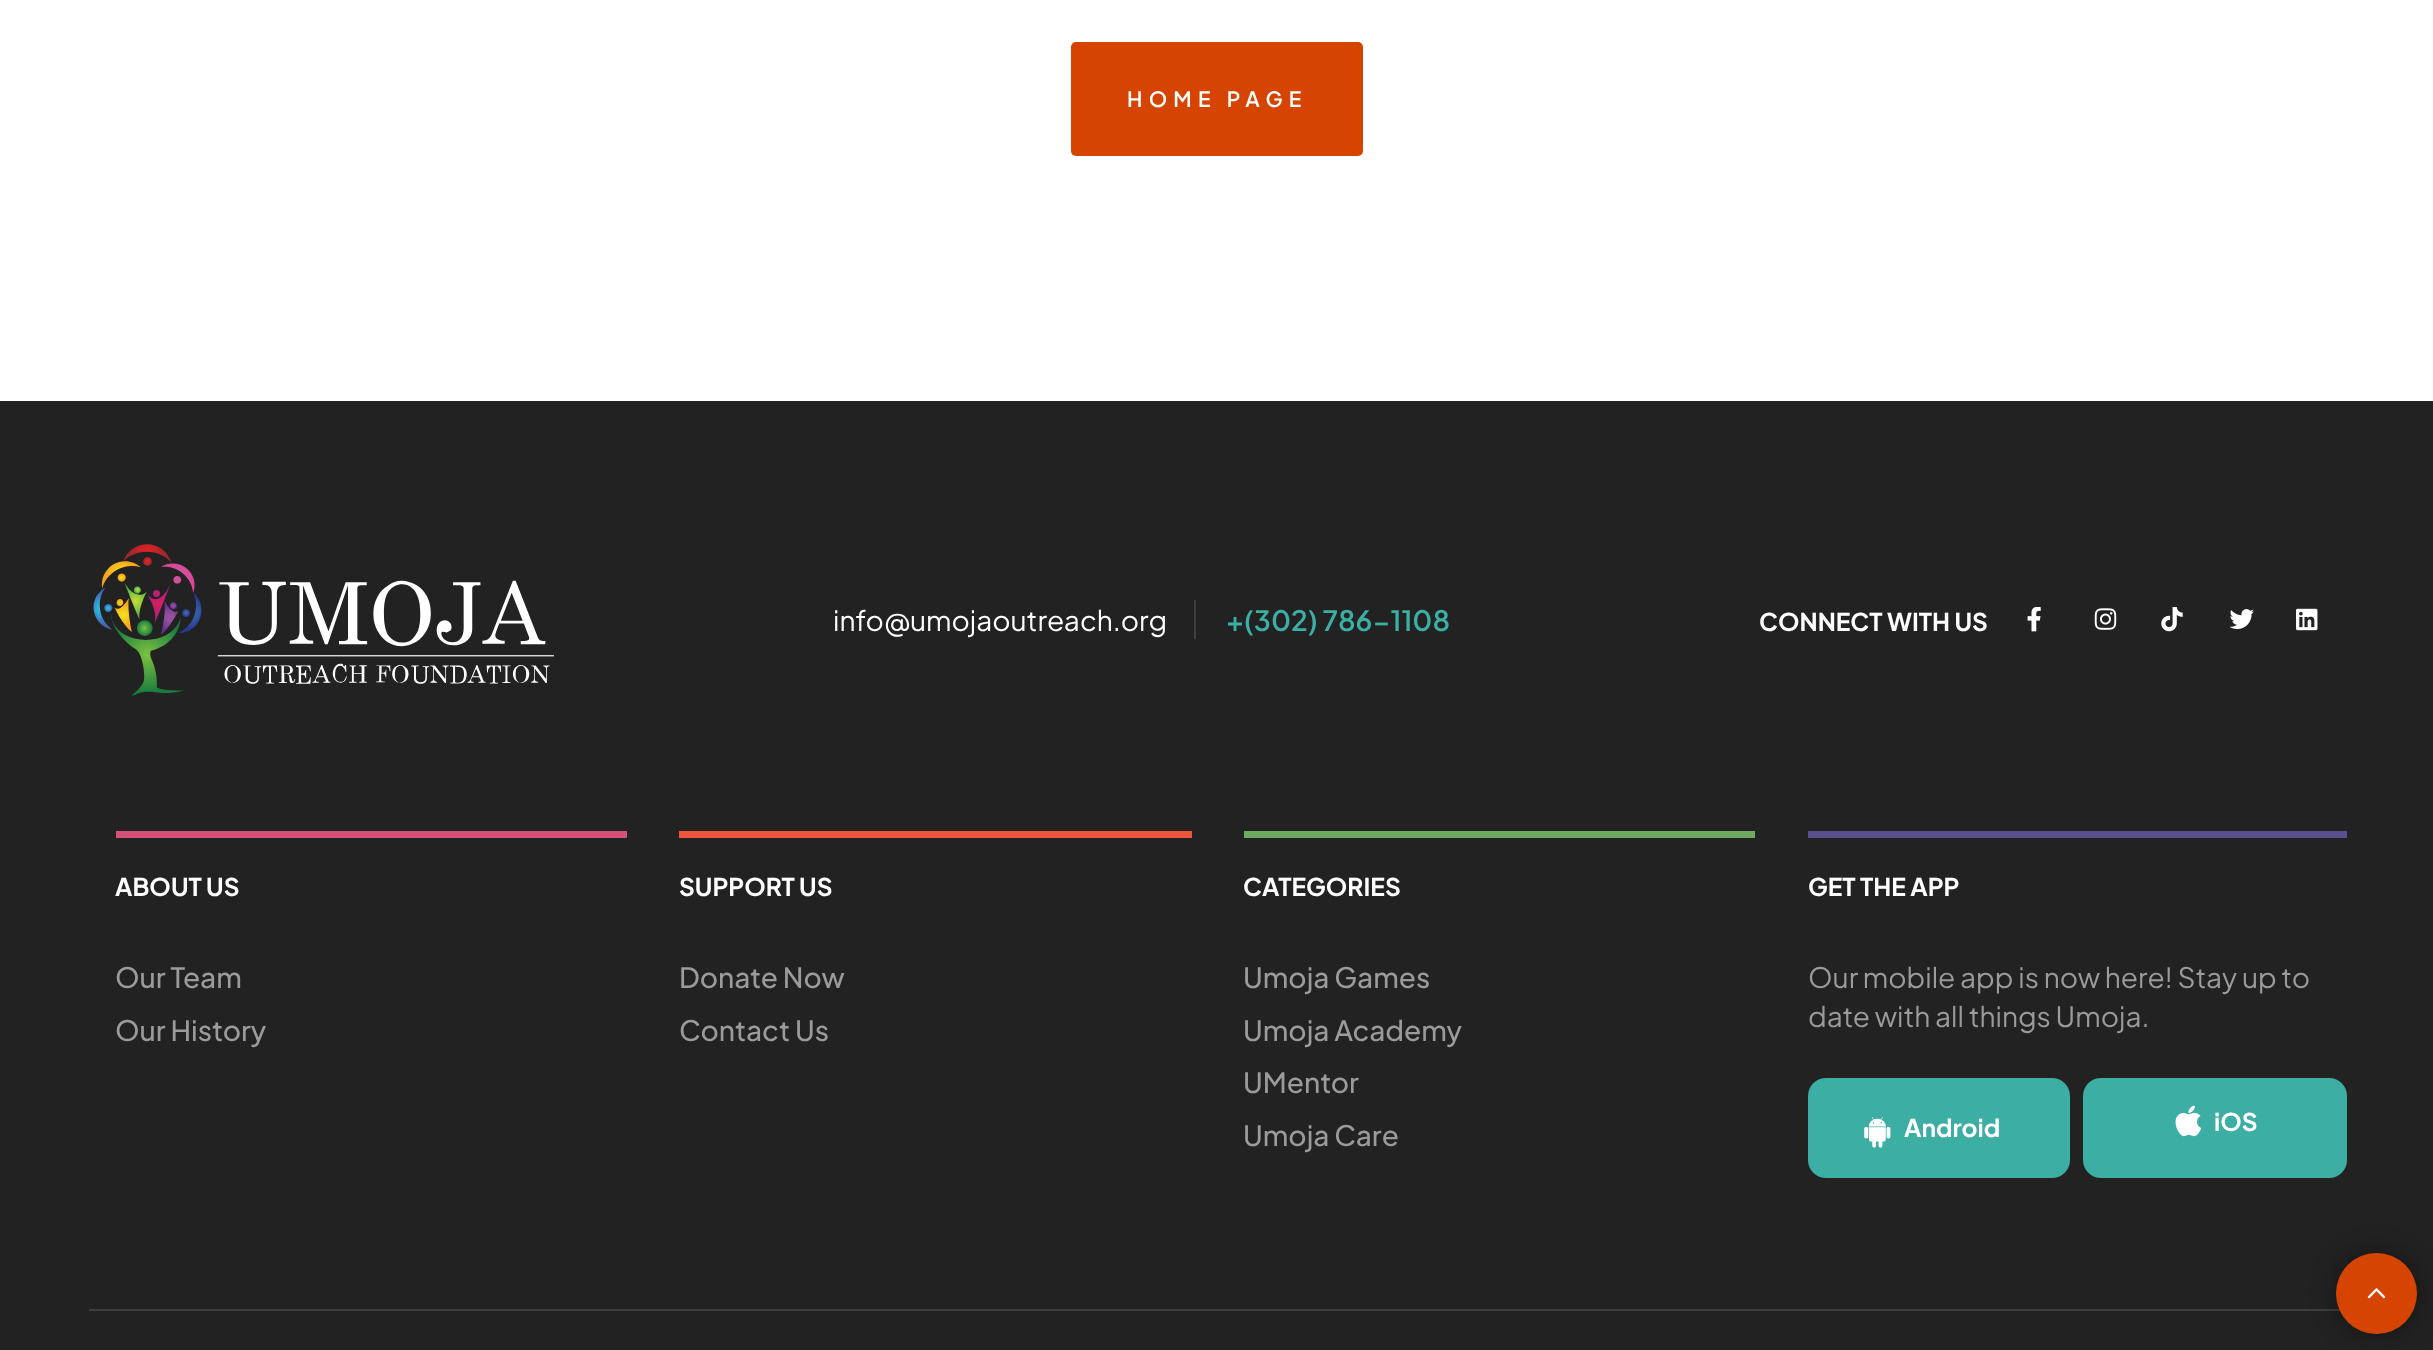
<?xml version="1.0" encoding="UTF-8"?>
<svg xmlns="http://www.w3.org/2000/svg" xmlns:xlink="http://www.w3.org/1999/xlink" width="2433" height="1350">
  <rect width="100%" height="100%" fill="#ffffff" />
  <rect x="1071" y="42" width="292" height="114" rx="5" fill="#d54400" />
  <rect y="401" width="2433" height="949" fill="#222222" />
  <image x="93" y="544" width="461" height="152" xlink:href="image1.png" />
  <rect x="1194" y="600" width="2" height="39" fill="#3e3e3e" />
  <image x="2027" y="607" width="14" height="25" xlink:href="image2.png" />
  <image x="2094" y="608" width="23" height="22" xlink:href="image3.png" />
  <image x="2161" y="607" width="22" height="25" xlink:href="image4.png" />
  <image x="2229" y="609" width="25" height="20" xlink:href="image5.png" />
  <image x="2296" y="608" width="22" height="23" xlink:href="image6.png" />
  <rect x="116" y="831" width="511" height="7" fill="#d65177" />
  <rect x="679" y="831" width="513" height="7" fill="#ed553b" />
  <rect x="1244" y="831" width="511" height="7" fill="#6faa61" />
  <rect x="1808" y="831" width="539" height="7" fill="#59508d" />
  <rect x="1808" y="1078" width="262" height="100" rx="18" fill="#3caea3" />
  <image x="1864" y="1117" width="27" height="31" xlink:href="image7.png" />
  <rect x="2083" y="1078" width="264" height="100" rx="18" fill="#3caea3" />
  <image x="2175" y="1105" width="27" height="32" xlink:href="image8.png" />
  <rect x="89" y="1309" width="2258" height="2" fill="#3e3e3e" />
  <rect x="2336" y="1253" width="81" height="81" rx="40.5" fill="#000000" fill-opacity="0.4" filter="blur(13px)" />
  <circle cx="2376.5" cy="1293.5" r="40.5" fill="#d54400" />
  <image x="2367" y="1288" width="19" height="11" xlink:href="image9.png" />
  <text x="1127" y="107" style="font-family: Plus Jakarta Sans; font-size: 21px; font-weight: 600; letter-spacing: 6.25px; fill: #ffffff">HOME PAGE</text>
  <text x="833" y="631" style="font-family: Plus Jakarta Sans; font-size: 28px; fill: #ffffff">info@umojaoutreach.org</text>
  <text x="1226" y="631" style="font-family: Plus Jakarta Sans; font-size: 28px; font-weight: 600; fill: #3caea3">+(302) 786-1108</text>
  <text x="1759" y="631" style="font-family: Plus Jakarta Sans; font-size: 24.5px; font-weight: bold; fill: #ffffff">CONNECT WITH US</text>
  <text x="115" y="896" style="font-family: Plus Jakarta Sans; font-size: 24.5px; font-weight: bold; fill: #ffffff">ABOUT US</text>
  <text x="115" y="988" style="font-family: Plus Jakarta Sans; font-size: 28px; font-weight: 500; fill: #9b9b9b">Our Team</text>
  <text x="115" y="1041" style="font-family: Plus Jakarta Sans; font-size: 28px; font-weight: 500; fill: #9b9b9b">Our History</text>
  <text x="679" y="896" style="font-family: Plus Jakarta Sans; font-size: 24.5px; font-weight: bold; fill: #ffffff">SUPPORT US</text>
  <text x="679" y="988" style="font-family: Plus Jakarta Sans; font-size: 28px; font-weight: 500; fill: #9b9b9b">Donate Now</text>
  <text x="679" y="1041" style="font-family: Plus Jakarta Sans; font-size: 28px; font-weight: 500; fill: #9b9b9b">Contact Us</text>
  <text x="1243" y="896" style="font-family: Plus Jakarta Sans; font-size: 24.5px; font-weight: bold; fill: #ffffff">CATEGORIES</text>
  <text x="1243" y="988" style="font-family: Plus Jakarta Sans; font-size: 28px; font-weight: 500; fill: #9b9b9b">Umoja Games</text>
  <text x="1243" y="1041" style="font-family: Plus Jakarta Sans; font-size: 28px; font-weight: 500; fill: #9b9b9b">Umoja Academy</text>
  <text x="1243" y="1093" style="font-family: Plus Jakarta Sans; font-size: 28px; font-weight: 500; fill: #9b9b9b">UMentor</text>
  <text x="1243" y="1146" style="font-family: Plus Jakarta Sans; font-size: 28px; font-weight: 500; fill: #9b9b9b">Umoja Care</text>
  <text x="1808" y="896" style="font-family: Plus Jakarta Sans; font-size: 24.5px; font-weight: bold; fill: #ffffff">GET THE APP</text>
  <text x="1808" y="988" style="font-family: Plus Jakarta Sans; font-size: 28px; fill: #9b9b9b">Our mobile app is now here! Stay up to</text>
  <text x="1808" y="1027" style="font-family: Plus Jakarta Sans; font-size: 28px; fill: #9b9b9b">date with all things Umoja.</text>
  <text x="1904" y="1137" style="font-family: Plus Jakarta Sans; font-size: 24.5px; font-weight: bold; fill: #ffffff">Android</text>
  <text x="2214" y="1131" style="font-family: Plus Jakarta Sans; font-size: 24.5px; font-weight: bold; fill: #ffffff">iOS</text>
</svg>
